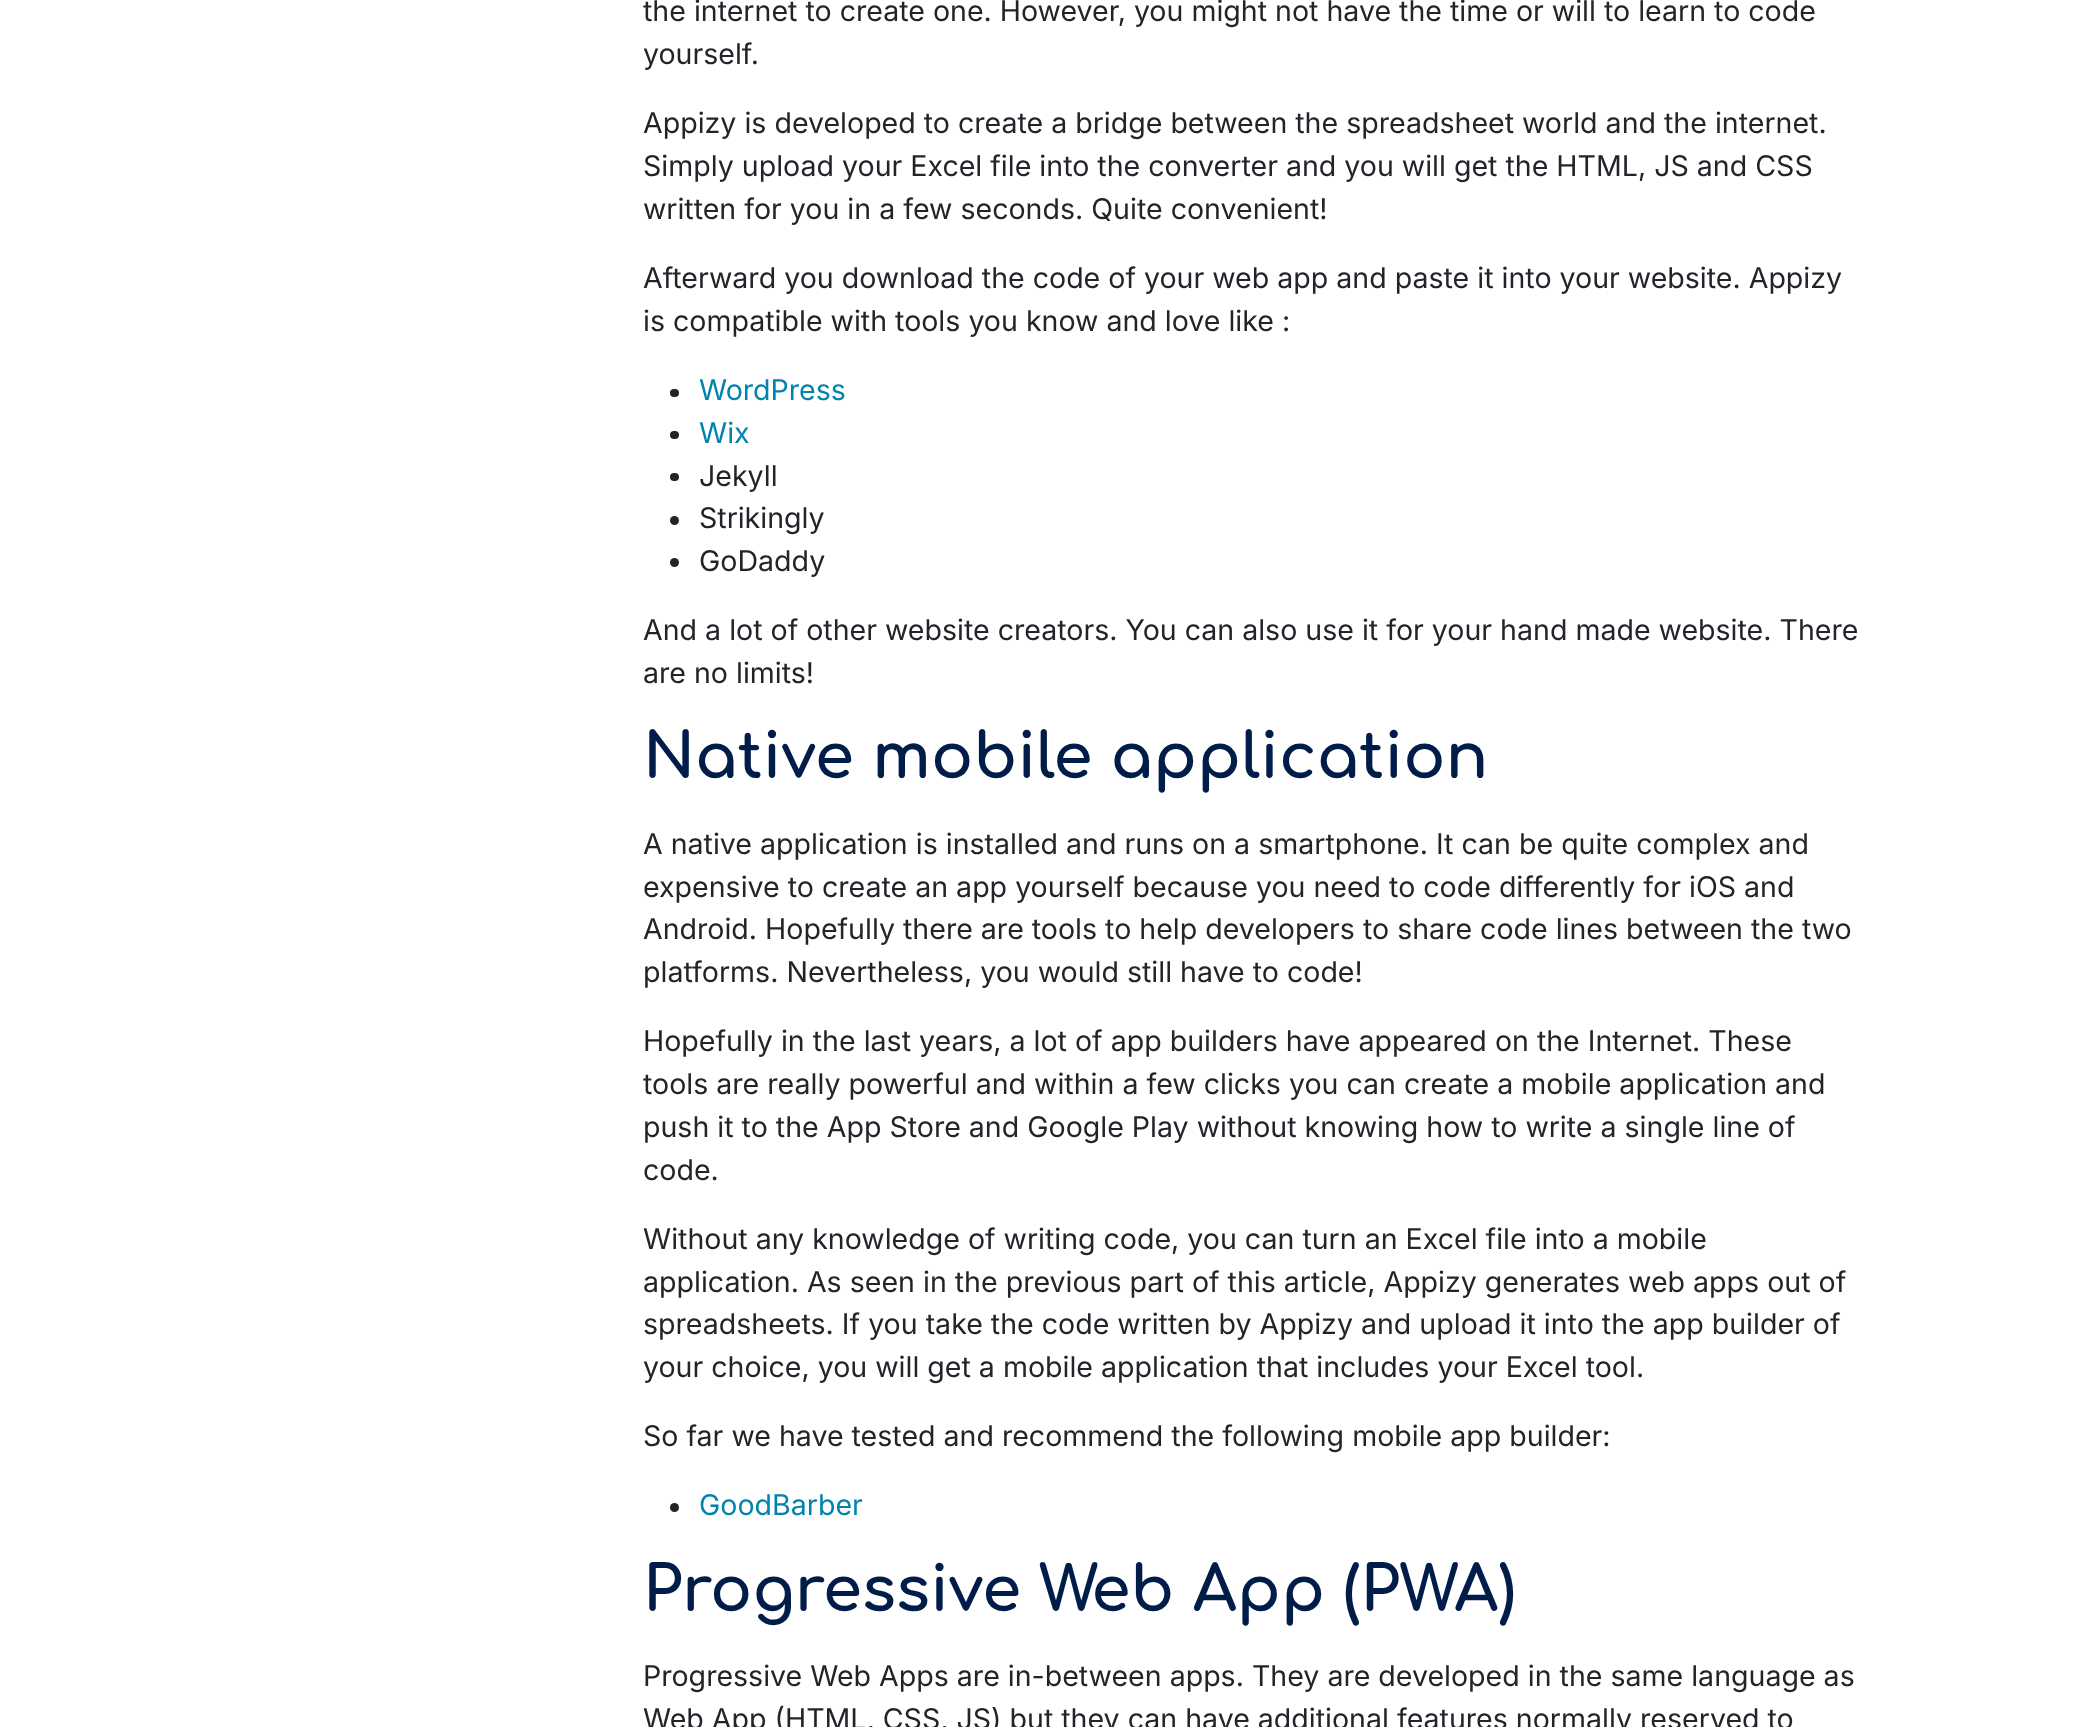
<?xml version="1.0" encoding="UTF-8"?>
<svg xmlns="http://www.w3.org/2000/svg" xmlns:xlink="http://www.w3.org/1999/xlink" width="2084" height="1727">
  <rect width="100%" height="100%" fill="#ffffff" />
  <rect x="670" y="389" width="9" height="8" rx="4" fill="#212529" />
  <rect x="670" y="431" width="9" height="8" rx="4" fill="#212529" />
  <rect x="670" y="473" width="9" height="8" rx="4" fill="#212529" />
  <circle cx="674.5" cy="520.5" r="4.5" fill="#212529" />
  <circle cx="674.5" cy="562.5" r="4.5" fill="#212529" />
  <circle cx="674.5" cy="1507.5" r="4.5" fill="#212529" />
  <text x="643" y="21" style="font-family: Inter; font-size: 28.55px; fill: #212529">the internet to create one. However, you might not have the time or will to learn to code</text>
  <text x="643" y="64" style="font-family: Inter; font-size: 28.55px; fill: #212529">yourself.</text>
  <text x="643" y="133" style="font-family: Inter; font-size: 28.55px; fill: #212529">Appizy is developed to create a bridge between the spreadsheet world and the internet.</text>
  <text x="643" y="176" style="font-family: Inter; font-size: 28.55px; fill: #212529">Simply upload your Excel file into the converter and you will get the HTML, JS and CSS</text>
  <text x="643" y="219" style="font-family: Inter; font-size: 28.55px; fill: #212529">written for you in a few seconds. Quite convenient!</text>
  <text x="643" y="288" style="font-family: Inter; font-size: 28.55px; fill: #212529">Afterward you download the code of your web app and paste it into your website. Appizy</text>
  <text x="643" y="331" style="font-family: Inter; font-size: 28.55px; fill: #212529">is compatible with tools you know and love like :</text>
  <text x="699" y="400" style="font-family: Inter; font-size: 28.55px; fill: #0083ae">WordPress</text>
  <text x="699" y="443" style="font-family: Inter; font-size: 28.55px; fill: #0083ae">Wix</text>
  <text x="699" y="486" style="font-family: Inter; font-size: 28.55px; fill: #212529">Jekyll</text>
  <text x="699" y="528" style="font-family: Inter; font-size: 28.55px; fill: #212529">Strikingly</text>
  <text x="699" y="571" style="font-family: Inter; font-size: 28.55px; fill: #212529">GoDaddy</text>
  <text x="643" y="640" style="font-family: Inter; font-size: 28.55px; fill: #212529">And a lot of other website creators. You can also use it for your hand made website. There</text>
  <text x="643" y="683" style="font-family: Inter; font-size: 28.55px; fill: #212529">are no limits!</text>
  <text x="643" y="778" style="font-family: Comfortaa; font-size: 62.75px; font-weight: bold; fill: #001d4a">Native mobile application</text>
  <text x="643" y="854" style="font-family: Inter; font-size: 28.55px; fill: #212529">A native application is installed and runs on a smartphone. It can be quite complex and</text>
  <text x="643" y="897" style="font-family: Inter; font-size: 28.55px; fill: #212529">expensive to create an app yourself because you need to code differently for iOS and</text>
  <text x="643" y="939" style="font-family: Inter; font-size: 28.55px; fill: #212529">Android. Hopefully there are tools to help developers to share code lines between the two</text>
  <text x="643" y="982" style="font-family: Inter; font-size: 28.55px; fill: #212529">platforms. Nevertheless, you would still have to code!</text>
  <text x="643" y="1051" style="font-family: Inter; font-size: 28.55px; fill: #212529">Hopefully in the last years, a lot of app builders have appeared on the Internet. These</text>
  <text x="643" y="1094" style="font-family: Inter; font-size: 28.55px; fill: #212529">tools are really powerful and within a few clicks you can create a mobile application and</text>
  <text x="643" y="1137" style="font-family: Inter; font-size: 28.55px; fill: #212529">push it to the App Store and Google Play without knowing how to write a single line of</text>
  <text x="643" y="1180" style="font-family: Inter; font-size: 28.55px; fill: #212529">code.</text>
  <text x="643" y="1249" style="font-family: Inter; font-size: 28.55px; fill: #212529">Without any knowledge of writing code, you can turn an Excel file into a mobile</text>
  <text x="643" y="1292" style="font-family: Inter; font-size: 28.55px; fill: #212529">application. As seen in the previous part of this article, Appizy generates web apps out of</text>
  <text x="643" y="1334" style="font-family: Inter; font-size: 28.55px; fill: #212529">spreadsheets. If you take the code written by Appizy and upload it into the app builder of</text>
  <text x="643" y="1377" style="font-family: Inter; font-size: 28.55px; fill: #212529">your choice, you will get a mobile application that includes your Excel tool.</text>
  <text x="643" y="1446" style="font-family: Inter; font-size: 28.55px; fill: #212529">So far we have tested and recommend the following mobile app builder:</text>
  <text x="699" y="1515" style="font-family: Inter; font-size: 28.55px; fill: #0083ae">GoodBarber</text>
  <text x="643" y="1611" style="font-family: Comfortaa; font-size: 62.75px; font-weight: bold; fill: #001d4a">Progressive Web App (PWA)</text>
  <text x="643" y="1686" style="font-family: Inter; font-size: 28.55px; fill: #212529">Progressive Web Apps are in-between apps. They are developed in the same language as</text>
  <text x="643" y="1729" style="font-family: Inter; font-size: 28.55px; fill: #212529">Web App (HTML, CSS, JS) but they can have additional features normally reserved to</text>
</svg>
